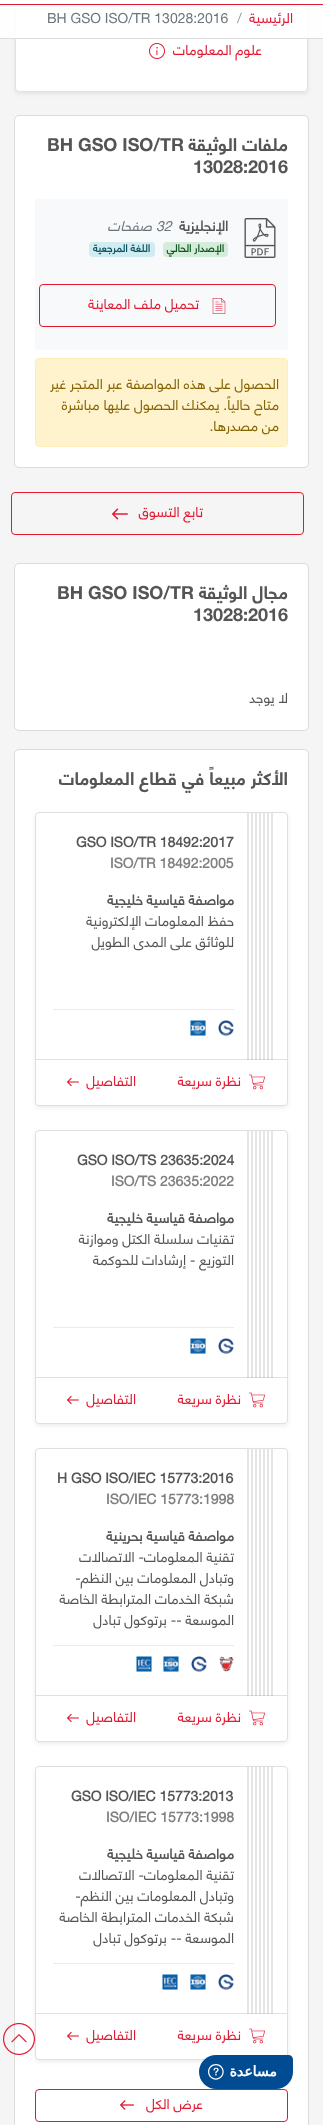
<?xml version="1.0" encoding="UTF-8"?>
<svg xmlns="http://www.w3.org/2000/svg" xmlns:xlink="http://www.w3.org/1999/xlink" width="323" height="2125">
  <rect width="100%" height="100%" fill="#f5f5f5" />
  <rect x="15" y="-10" width="293" height="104" rx="4" fill="#000000" fill-opacity="0.07" filter="blur(2px)" />
  <rect x="15.5" y="-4.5" width="292" height="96" rx="3.5" fill="#ffffff" stroke="#dee2e6" />
  <rect width="323" height="4" fill="#ffffff" />
  <rect y="4" width="323" height="1" fill="#e11931" />
  <rect y="5" width="323" height="33" fill="#ffffff" fill-opacity="0.9" />
  <rect y="38" width="323" height="1" fill="#dddddd" />
  <image x="149" y="43" width="16" height="16" xlink:href="image1.png" />
  <rect x="15" y="116" width="293" height="351" rx="4" fill="#000000" fill-opacity="0.2" filter="blur(0.5px)" />
  <rect x="14.5" y="115.5" width="294" height="352" rx="4.5" fill="none" stroke="#000000" stroke-opacity="0.1" />
  <rect x="15" y="116" width="293" height="351" rx="4" fill="#ffffff" />
  <rect x="35" y="199" width="253" height="151" fill="#f8f9fa" />
  <image x="244" y="218" width="32" height="40" xlink:href="image2.png" />
  <rect x="163" y="242" width="65" height="15" rx="4" fill="#d4edda" />
  <rect x="89" y="242" width="66" height="15" rx="4" fill="#d1ecf1" />
  <rect x="39.5" y="284.5" width="236" height="42" rx="3.5" fill="none" stroke="#e11931" />
  <image x="212" y="298" width="14" height="16" xlink:href="image3.png" />
  <rect x="35.5" y="358.5" width="252" height="88" rx="3.5" fill="#fff3cd" stroke="#ffeeba" />
  <rect x="11.5" y="492.5" width="292" height="42" rx="3.5" fill="none" stroke="#e11931" />
  <image x="112" y="508" width="16" height="12" xlink:href="image4.png" />
  <rect x="15" y="564" width="293" height="166" rx="4" fill="#000000" fill-opacity="0.2" filter="blur(0.5px)" />
  <rect x="14.5" y="563.5" width="294" height="167" rx="4.5" fill="none" stroke="#000000" stroke-opacity="0.1" />
  <rect x="15" y="564" width="293" height="166" rx="4" fill="#ffffff" />
  <rect x="15" y="750" width="293" height="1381" rx="4" fill="#000000" fill-opacity="0.2" filter="blur(0.5px)" />
  <rect x="14.5" y="749.5" width="294" height="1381" rx="4.5" fill="none" stroke="#000000" stroke-opacity="0.1" />
  <rect x="15" y="750" width="293" height="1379" rx="4" fill="#ffffff" />
  <rect x="35" y="814" width="253" height="294" rx="4" fill="#000000" fill-opacity="0.07" filter="blur(2px)" />
  <rect x="35" y="812" width="253" height="294" rx="4" fill="#ffffff" />
  <rect x="36" y="1059" width="251" height="1" fill="#e0e0e0" />
  <rect x="35.5" y="812.5" width="252" height="293" rx="3.5" fill="none" stroke="#dfdfdf" />
  <rect x="271" y="813" width="2" height="247" fill="#e5e5e5" />
  <rect x="271" y="1059" width="2" height="1" fill="#cacaca" />
  <rect x="267" y="813" width="2" height="247" fill="#e5e5e5" />
  <rect x="267" y="1059" width="2" height="1" fill="#cacaca" />
  <rect x="263" y="813" width="2" height="247" fill="#e5e5e5" />
  <rect x="263" y="1059" width="2" height="1" fill="#cacaca" />
  <rect x="259" y="813" width="2" height="247" fill="#e5e5e5" />
  <rect x="259" y="1059" width="2" height="1" fill="#cacaca" />
  <rect x="255" y="813" width="2" height="247" fill="#e5e5e5" />
  <rect x="255" y="1059" width="2" height="1" fill="#cacaca" />
  <rect x="251" y="813" width="2" height="247" fill="#e5e5e5" />
  <rect x="251" y="1059" width="2" height="1" fill="#cacaca" />
  <rect x="247" y="813" width="2" height="247" fill="#e5e5e5" />
  <rect x="247" y="1059" width="2" height="1" fill="#cacaca" />
  <rect x="53" y="1009" width="181" height="1" fill="#e9ecef" />
  <image x="218" y="1020" width="16" height="16" xlink:href="image5.png" />
  <image x="190" y="1020" width="16" height="16" xlink:href="image6.png" />
  <image x="249" y="1074" width="16" height="16" xlink:href="image7.png" />
  <image x="67" y="1077" width="12" height="10" xlink:href="image8.png" />
  <rect x="35" y="1132" width="253" height="294" rx="4" fill="#000000" fill-opacity="0.07" filter="blur(2px)" />
  <rect x="35" y="1130" width="253" height="294" rx="4" fill="#ffffff" />
  <rect x="36" y="1377" width="251" height="1" fill="#e0e0e0" />
  <rect x="35.5" y="1130.5" width="252" height="293" rx="3.5" fill="none" stroke="#dfdfdf" />
  <rect x="271" y="1131" width="2" height="247" fill="#e5e5e5" />
  <rect x="271" y="1377" width="2" height="1" fill="#cacaca" />
  <rect x="267" y="1131" width="2" height="247" fill="#e5e5e5" />
  <rect x="267" y="1377" width="2" height="1" fill="#cacaca" />
  <rect x="263" y="1131" width="2" height="247" fill="#e5e5e5" />
  <rect x="263" y="1377" width="2" height="1" fill="#cacaca" />
  <rect x="259" y="1131" width="2" height="247" fill="#e5e5e5" />
  <rect x="259" y="1377" width="2" height="1" fill="#cacaca" />
  <rect x="255" y="1131" width="2" height="247" fill="#e5e5e5" />
  <rect x="255" y="1377" width="2" height="1" fill="#cacaca" />
  <rect x="251" y="1131" width="2" height="247" fill="#e5e5e5" />
  <rect x="251" y="1377" width="2" height="1" fill="#cacaca" />
  <rect x="247" y="1131" width="2" height="247" fill="#e5e5e5" />
  <rect x="247" y="1377" width="2" height="1" fill="#cacaca" />
  <rect x="53" y="1327" width="181" height="1" fill="#e9ecef" />
  <image x="218" y="1338" width="16" height="16" xlink:href="image5.png" />
  <image x="190" y="1338" width="16" height="16" xlink:href="image6.png" />
  <image x="249" y="1392" width="16" height="16" xlink:href="image7.png" />
  <image x="67" y="1395" width="12" height="10" xlink:href="image8.png" />
  <rect x="35" y="1450" width="253" height="294" rx="4" fill="#000000" fill-opacity="0.07" filter="blur(2px)" />
  <rect x="35" y="1448" width="253" height="294" rx="4" fill="#ffffff" />
  <rect x="36" y="1695" width="251" height="1" fill="#e0e0e0" />
  <rect x="35.5" y="1448.5" width="252" height="293" rx="3.5" fill="none" stroke="#dfdfdf" />
  <rect x="271" y="1449" width="2" height="247" fill="#e5e5e5" />
  <rect x="271" y="1695" width="2" height="1" fill="#cacaca" />
  <rect x="267" y="1449" width="2" height="247" fill="#e5e5e5" />
  <rect x="267" y="1695" width="2" height="1" fill="#cacaca" />
  <rect x="263" y="1449" width="2" height="247" fill="#e5e5e5" />
  <rect x="263" y="1695" width="2" height="1" fill="#cacaca" />
  <rect x="259" y="1449" width="2" height="247" fill="#e5e5e5" />
  <rect x="259" y="1695" width="2" height="1" fill="#cacaca" />
  <rect x="255" y="1449" width="2" height="247" fill="#e5e5e5" />
  <rect x="255" y="1695" width="2" height="1" fill="#cacaca" />
  <rect x="251" y="1449" width="2" height="247" fill="#e5e5e5" />
  <rect x="251" y="1695" width="2" height="1" fill="#cacaca" />
  <rect x="247" y="1449" width="2" height="247" fill="#e5e5e5" />
  <rect x="247" y="1695" width="2" height="1" fill="#cacaca" />
  <rect x="53" y="1645" width="181" height="1" fill="#e9ecef" />
  <image x="219" y="1656" width="15" height="16" xlink:href="image9.png" />
  <image x="191" y="1656" width="16" height="16" xlink:href="image5.png" />
  <image x="163" y="1656" width="16" height="16" xlink:href="image6.png" />
  <image x="136" y="1656" width="16" height="16" xlink:href="image10.png" />
  <image x="249" y="1710" width="16" height="16" xlink:href="image7.png" />
  <image x="67" y="1713" width="12" height="10" xlink:href="image8.png" />
  <rect x="35" y="1768" width="253" height="294" rx="4" fill="#000000" fill-opacity="0.07" filter="blur(2px)" />
  <rect x="35" y="1766" width="253" height="294" rx="4" fill="#ffffff" />
  <rect x="36" y="2013" width="251" height="1" fill="#e0e0e0" />
  <rect x="35.5" y="1766.5" width="252" height="293" rx="3.5" fill="none" stroke="#dfdfdf" />
  <rect x="271" y="1767" width="2" height="247" fill="#e5e5e5" />
  <rect x="271" y="2013" width="2" height="1" fill="#cacaca" />
  <rect x="267" y="1767" width="2" height="247" fill="#e5e5e5" />
  <rect x="267" y="2013" width="2" height="1" fill="#cacaca" />
  <rect x="263" y="1767" width="2" height="247" fill="#e5e5e5" />
  <rect x="263" y="2013" width="2" height="1" fill="#cacaca" />
  <rect x="259" y="1767" width="2" height="247" fill="#e5e5e5" />
  <rect x="259" y="2013" width="2" height="1" fill="#cacaca" />
  <rect x="255" y="1767" width="2" height="247" fill="#e5e5e5" />
  <rect x="255" y="2013" width="2" height="1" fill="#cacaca" />
  <rect x="251" y="1767" width="2" height="247" fill="#e5e5e5" />
  <rect x="251" y="2013" width="2" height="1" fill="#cacaca" />
  <rect x="247" y="1767" width="2" height="247" fill="#e5e5e5" />
  <rect x="247" y="2013" width="2" height="1" fill="#cacaca" />
  <rect x="53" y="1963" width="181" height="1" fill="#e9ecef" />
  <image x="218" y="1974" width="16" height="16" xlink:href="image5.png" />
  <image x="190" y="1974" width="16" height="16" xlink:href="image6.png" />
  <image x="162" y="1974" width="16" height="16" xlink:href="image10.png" />
  <image x="249" y="2028" width="16" height="16" xlink:href="image7.png" />
  <image x="67" y="2031" width="12" height="10" xlink:href="image8.png" />
  <rect x="35.5" y="2089.5" width="252" height="32" rx="3.5" fill="none" stroke="#e11931" />
  <image x="120" y="2100" width="14" height="10" xlink:href="image11.png" />
  <image x="3" y="2023" width="32" height="32" xlink:href="image12.png" />
  <image x="199" y="2055" width="94" height="34" xlink:href="image13.png" />
  <text x="293" y="23" style="font-family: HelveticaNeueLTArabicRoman; font-size: 14px; direction: rtl; fill: #e11931">الرئيسية</text>
  <text x="237" y="23" style="font-family: HelveticaNeueLTArabicRoman; font-size: 14px; fill: #999999">/</text>
  <text x="47" y="23" style="font-family: HelveticaNeueLTArabicRoman; font-size: 14px; fill: #6c757d">BH GSO ISO/TR 13028:2016</text>
  <text x="262" y="55" style="font-family: HelveticaNeueLTArabicRoman; font-size: 14px; direction: rtl; fill: #e11931">علوم المعلومات</text>
  <text x="288" y="151" style="font-family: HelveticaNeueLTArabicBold; font-size: 18px; direction: rtl; fill: #555555">ملفات الوثيقة</text>
  <text x="47" y="151" style="font-family: HelveticaNeueLTArabicBold; font-size: 18px; fill: #555555">BH GSO ISO/TR</text>
  <text x="193" y="173" style="font-family: HelveticaNeueLTArabicBold; font-size: 18px; fill: #555555">13028:2016</text>
  <text x="228" y="231" style="font-family: HelveticaNeueLTArabicRoman; font-size: 14px; font-weight: bold; direction: rtl; fill: #555555">الإنجليزية</text>
  <text x="156" y="231" style="font-family: HelveticaNeueLTArabicRoman; font-size: 14px; font-style: italic; fill: #6c757d">32</text>
  <text x="152" y="231" style="font-family: HelveticaNeueLTArabicRoman; font-size: 14px; font-style: italic; direction: rtl; fill: #6c757d">صفحات</text>
  <text x="224" y="252" style="font-family: HelveticaNeueLTArabicRoman; font-size: 10.5px; font-weight: bold; direction: rtl; fill: #155724">الإصدار الحالي</text>
  <text x="150" y="252" style="font-family: HelveticaNeueLTArabicRoman; font-size: 10.5px; font-weight: bold; direction: rtl; fill: #0c5460">اللغة المرجعية</text>
  <text x="199" y="309" style="font-family: HelveticaNeueLTArabicRoman; font-size: 14px; direction: rtl; fill: #e11931">تحميل ملف المعاينة</text>
  <text x="279" y="389" style="font-family: HelveticaNeueLTArabicRoman; font-size: 14px; direction: rtl; fill: #856404">الحصول على هذه المواصفة عبر المتجر غير</text>
  <text x="279" y="410" style="font-family: HelveticaNeueLTArabicRoman; font-size: 14px; direction: rtl; fill: #856404">متاح حالياً. يمكنك الحصول عليها مباشرة</text>
  <text x="279" y="431" style="font-family: HelveticaNeueLTArabicRoman; font-size: 14px; direction: rtl; fill: #856404">من مصدرها.</text>
  <text x="203" y="517" style="font-family: HelveticaNeueLTArabicRoman; font-size: 14px; direction: rtl; fill: #e11931">تابع التسوق</text>
  <text x="288" y="599" style="font-family: HelveticaNeueLTArabicBold; font-size: 18px; direction: rtl; fill: #555555">مجال الوثيقة</text>
  <text x="57" y="599" style="font-family: HelveticaNeueLTArabicBold; font-size: 18px; fill: #555555">BH GSO ISO/TR</text>
  <text x="193" y="621" style="font-family: HelveticaNeueLTArabicBold; font-size: 18px; fill: #555555">13028:2016</text>
  <text x="288" y="703" style="font-family: HelveticaNeueLTArabicRoman; font-size: 14px; direction: rtl; fill: #555555">لا يوجد</text>
  <text x="288" y="785" style="font-family: HelveticaNeueLTArabicBold; font-size: 18px; direction: rtl; fill: #555555">الأكثر مبيعاً في قطاع المعلومات</text>
  <text x="76" y="847" style="font-family: HelveticaNeueLTArabicRoman; font-size: 14px; font-weight: bold; fill: #555555">GSO ISO/TR 18492:2017</text>
  <text x="110" y="868" style="font-family: HelveticaNeueLTArabicRoman; font-size: 14px; font-weight: bold; fill: #808080">ISO/TR 18492:2005</text>
  <text x="234" y="905" style="font-family: HelveticaNeueLTArabicRoman; font-size: 14px; font-weight: bold; direction: rtl; fill: #555555">مواصفة قياسية خليجية</text>
  <text x="234" y="926" style="font-family: HelveticaNeueLTArabicRoman; font-size: 14px; direction: rtl; fill: #555555">حفظ المعلومات الإلكترونية</text>
  <text x="234" y="947" style="font-family: HelveticaNeueLTArabicRoman; font-size: 14px; direction: rtl; fill: #555555">للوثائق على المدى الطويل</text>
  <text x="241" y="1086" style="font-family: HelveticaNeueLTArabicRoman; font-size: 14px; direction: rtl; fill: #e11931">نظرة سريعة</text>
  <text x="136" y="1086" style="font-family: HelveticaNeueLTArabicRoman; font-size: 14px; direction: rtl; fill: #e11931">التفاصيل</text>
  <text x="77" y="1165" style="font-family: HelveticaNeueLTArabicRoman; font-size: 14px; font-weight: bold; fill: #555555">GSO ISO/TS 23635:2024</text>
  <text x="111" y="1186" style="font-family: HelveticaNeueLTArabicRoman; font-size: 14px; font-weight: bold; fill: #808080">ISO/TS 23635:2022</text>
  <text x="234" y="1223" style="font-family: HelveticaNeueLTArabicRoman; font-size: 14px; font-weight: bold; direction: rtl; fill: #555555">مواصفة قياسية خليجية</text>
  <text x="234" y="1244" style="font-family: HelveticaNeueLTArabicRoman; font-size: 14px; direction: rtl; fill: #555555">تقنيات سلسلة الكتل وموازنة</text>
  <text x="234" y="1265" style="font-family: HelveticaNeueLTArabicRoman; font-size: 14px; direction: rtl; fill: #555555">التوزيع - إرشادات للحوكمة</text>
  <text x="241" y="1404" style="font-family: HelveticaNeueLTArabicRoman; font-size: 14px; direction: rtl; fill: #e11931">نظرة سريعة</text>
  <text x="136" y="1404" style="font-family: HelveticaNeueLTArabicRoman; font-size: 14px; direction: rtl; fill: #e11931">التفاصيل</text>
  <text x="57" y="1483" style="font-family: HelveticaNeueLTArabicRoman; font-size: 14px; font-weight: bold; fill: #555555">H GSO ISO/IEC 15773:2016</text>
  <text x="106" y="1504" style="font-family: HelveticaNeueLTArabicRoman; font-size: 14px; font-weight: bold; fill: #808080">ISO/IEC 15773:1998</text>
  <text x="234" y="1541" style="font-family: HelveticaNeueLTArabicRoman; font-size: 14px; font-weight: bold; direction: rtl; fill: #555555">مواصفة قياسية بحرينية</text>
  <text x="234" y="1562" style="font-family: HelveticaNeueLTArabicRoman; font-size: 14px; direction: rtl; fill: #555555">تقنية المعلومات- الاتصالات</text>
  <text x="234" y="1583" style="font-family: HelveticaNeueLTArabicRoman; font-size: 14px; direction: rtl; fill: #555555">وتبادل المعلومات بين النظم-</text>
  <text x="234" y="1604" style="font-family: HelveticaNeueLTArabicRoman; font-size: 14px; direction: rtl; fill: #555555">شبكة الخدمات المترابطة الخاصة</text>
  <text x="234" y="1625" style="font-family: HelveticaNeueLTArabicRoman; font-size: 14px; direction: rtl; fill: #555555">الموسعة -- برتوكول تبادل</text>
  <text x="241" y="1722" style="font-family: HelveticaNeueLTArabicRoman; font-size: 14px; direction: rtl; fill: #e11931">نظرة سريعة</text>
  <text x="136" y="1722" style="font-family: HelveticaNeueLTArabicRoman; font-size: 14px; direction: rtl; fill: #e11931">التفاصيل</text>
  <text x="71" y="1801" style="font-family: HelveticaNeueLTArabicRoman; font-size: 14px; font-weight: bold; fill: #555555">GSO ISO/IEC 15773:2013</text>
  <text x="106" y="1822" style="font-family: HelveticaNeueLTArabicRoman; font-size: 14px; font-weight: bold; fill: #808080">ISO/IEC 15773:1998</text>
  <text x="234" y="1859" style="font-family: HelveticaNeueLTArabicRoman; font-size: 14px; font-weight: bold; direction: rtl; fill: #555555">مواصفة قياسية خليجية</text>
  <text x="234" y="1880" style="font-family: HelveticaNeueLTArabicRoman; font-size: 14px; direction: rtl; fill: #555555">تقنية المعلومات- الاتصالات</text>
  <text x="234" y="1901" style="font-family: HelveticaNeueLTArabicRoman; font-size: 14px; direction: rtl; fill: #555555">وتبادل المعلومات بين النظم-</text>
  <text x="234" y="1922" style="font-family: HelveticaNeueLTArabicRoman; font-size: 14px; direction: rtl; fill: #555555">شبكة الخدمات المترابطة الخاصة</text>
  <text x="234" y="1943" style="font-family: HelveticaNeueLTArabicRoman; font-size: 14px; direction: rtl; fill: #555555">الموسعة -- برتوكول تبادل</text>
  <text x="241" y="2040" style="font-family: HelveticaNeueLTArabicRoman; font-size: 14px; direction: rtl; fill: #e11931">نظرة سريعة</text>
  <text x="136" y="2040" style="font-family: HelveticaNeueLTArabicRoman; font-size: 14px; direction: rtl; fill: #e11931">التفاصيل</text>
  <text x="203" y="2109" style="font-family: HelveticaNeueLTArabicRoman; font-size: 14px; direction: rtl; fill: #e11931">عرض الكل</text>
</svg>
